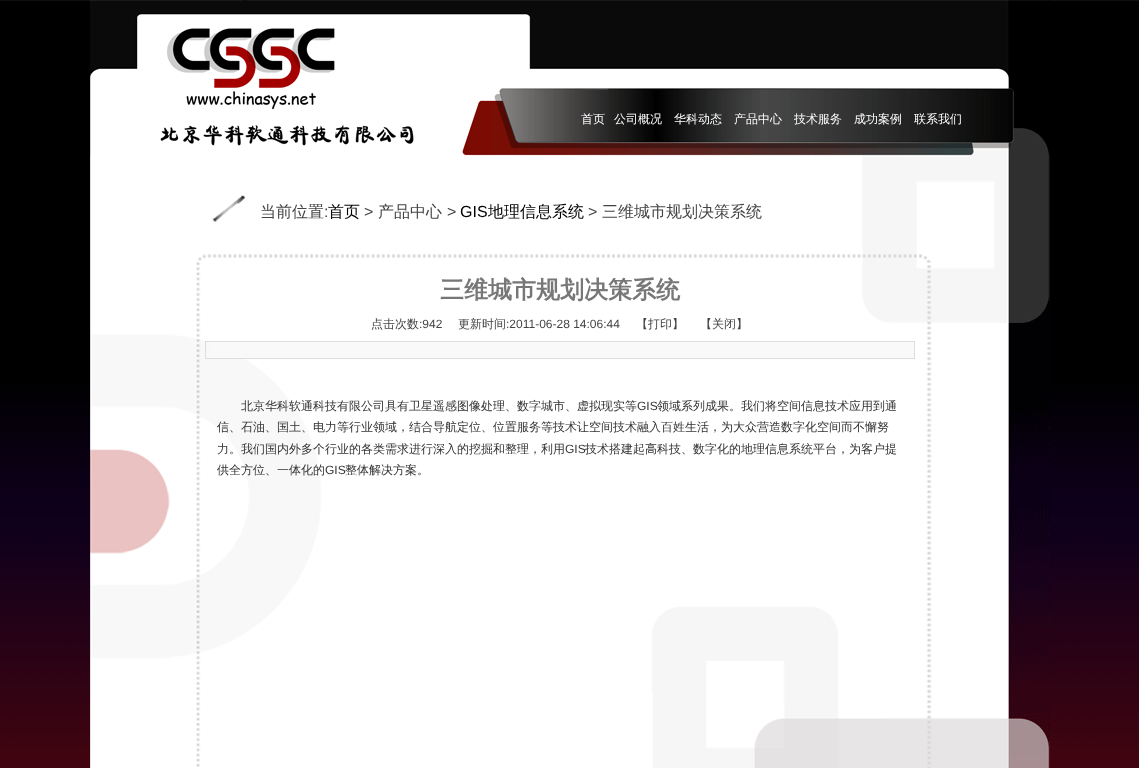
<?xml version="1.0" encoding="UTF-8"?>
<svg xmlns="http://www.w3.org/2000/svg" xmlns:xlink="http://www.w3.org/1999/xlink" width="1139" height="768">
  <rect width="100%" height="100%" fill="#ffffff" />
  <image x="0" y="0" width="1139" height="768" xlink:href="image1.png" />
  <image x="90" y="0" width="960" height="155" xlink:href="image2.png" />
  <image x="90" y="155" width="960" height="613" xlink:href="image3.png" />
  <rect x="210" y="342" width="704" height="16" fill="#f9f9f9" />
  <rect x="205.5" y="341.5" width="709" height="17" fill="none" stroke="#dddddd" />
  <text x="581" y="123" style="font-family: WenQuanYi Zen Hei; font-size: 12px; font-weight: 500; fill: #ffffff">首页</text>
  <text x="614" y="123" style="font-family: WenQuanYi Zen Hei; font-size: 12px; font-weight: 500; fill: #ffffff">公司概况</text>
  <text x="674" y="123" style="font-family: WenQuanYi Zen Hei; font-size: 12px; font-weight: 500; fill: #ffffff">华科动态</text>
  <text x="734" y="123" style="font-family: WenQuanYi Zen Hei; font-size: 12px; font-weight: 500; fill: #ffffff">产品中心</text>
  <text x="794" y="123" style="font-family: WenQuanYi Zen Hei; font-size: 12px; font-weight: 500; fill: #ffffff">技术服务</text>
  <text x="854" y="123" style="font-family: WenQuanYi Zen Hei; font-size: 12px; font-weight: 500; fill: #ffffff">成功案例</text>
  <text x="914" y="123" style="font-family: WenQuanYi Zen Hei; font-size: 12px; font-weight: 500; fill: #ffffff">联系我们</text>
  <text x="260" y="217" style="font-family: WenQuanYi Zen Hei; font-size: 16px; font-weight: 500; fill: #444444">当前位置</text>
  <text x="324" y="217" style="font-family: Liberation Sans; font-size: 16px; fill: #444444">:</text>
  <text x="328" y="217" style="font-family: WenQuanYi Zen Hei; font-size: 16px; font-weight: 500; fill: #000000">首页</text>
  <text x="364" y="217" style="font-family: Liberation Sans; font-size: 16px; fill: #444444">&gt;</text>
  <text x="378" y="217" style="font-family: WenQuanYi Zen Hei; font-size: 16px; font-weight: 500; fill: #444444">产品中心</text>
  <text x="447" y="217" style="font-family: Liberation Sans; font-size: 16px; fill: #444444">&gt;</text>
  <text x="460" y="217" style="font-family: Liberation Sans; font-size: 16px; fill: #000000">GIS</text>
  <text x="488" y="217" style="font-family: WenQuanYi Zen Hei; font-size: 16px; font-weight: 500; fill: #000000">地理信息系统</text>
  <text x="588" y="217" style="font-family: Liberation Sans; font-size: 16px; fill: #444444">&gt;</text>
  <text x="602" y="217" style="font-family: WenQuanYi Zen Hei; font-size: 16px; font-weight: 500; fill: #444444">三维城市规划决策系统</text>
  <text x="440" y="298" style="font-family: WenQuanYi Zen Hei; font-size: 24px; font-weight: bold; fill: #777777">三维城市规划决策系统</text>
  <text x="371" y="328" style="font-family: WenQuanYi Zen Hei; font-size: 12px; font-weight: 500; fill: #444444">点击次数</text>
  <text x="419" y="328" style="font-family: Liberation Sans; font-size: 12px; fill: #444444">:942</text>
  <text x="458" y="328" style="font-family: WenQuanYi Zen Hei; font-size: 12px; font-weight: 500; fill: #444444">更新时间</text>
  <text x="506" y="328" style="font-family: Liberation Sans; font-size: 12px; fill: #444444">:2011-06-28 14:06:44</text>
  <text x="636" y="328" style="font-family: WenQuanYi Zen Hei; font-size: 12px; font-weight: 500; fill: #444444">【打印】</text>
  <text x="700" y="328" style="font-family: WenQuanYi Zen Hei; font-size: 12px; font-weight: 500; fill: #444444">【关闭】</text>
  <text x="241" y="410" style="font-family: WenQuanYi Zen Hei; font-size: 12px; font-weight: 500; fill: #333333">北京华科软通科技有限公司具有卫星遥感图像处理、数字城市、虚拟现实等</text>
  <text x="637" y="410" style="font-family: Liberation Sans; font-size: 12px; fill: #333333">GIS</text>
  <text x="657" y="410" style="font-family: WenQuanYi Zen Hei; font-size: 12px; font-weight: 500; fill: #333333">领域系列成果。我们将空间信息技术应用到通</text>
  <text x="217" y="431" style="font-family: WenQuanYi Zen Hei; font-size: 12px; font-weight: 500; fill: #333333">信、石油、国土、电力等行业领域，结合导航定位、位置服务等技术让空间技术融入百姓生活，为大众营造数字化空间而不懈努</text>
  <text x="217" y="453" style="font-family: WenQuanYi Zen Hei; font-size: 12px; font-weight: 500; fill: #333333">力。我们国内外多个行业的各类需求进行深入的挖掘和整理，利用</text>
  <text x="565" y="453" style="font-family: Liberation Sans; font-size: 12px; fill: #333333">GIS</text>
  <text x="585" y="453" style="font-family: WenQuanYi Zen Hei; font-size: 12px; font-weight: 500; fill: #333333">技术搭建起高科技、数字化的地理信息系统平台，为客户提</text>
  <text x="217" y="474" style="font-family: WenQuanYi Zen Hei; font-size: 12px; font-weight: 500; fill: #333333">供全方位、一体化的</text>
  <text x="325" y="474" style="font-family: Liberation Sans; font-size: 12px; fill: #333333">GIS</text>
  <text x="345" y="474" style="font-family: WenQuanYi Zen Hei; font-size: 12px; font-weight: 500; fill: #333333">整体解决方案。</text>
</svg>
